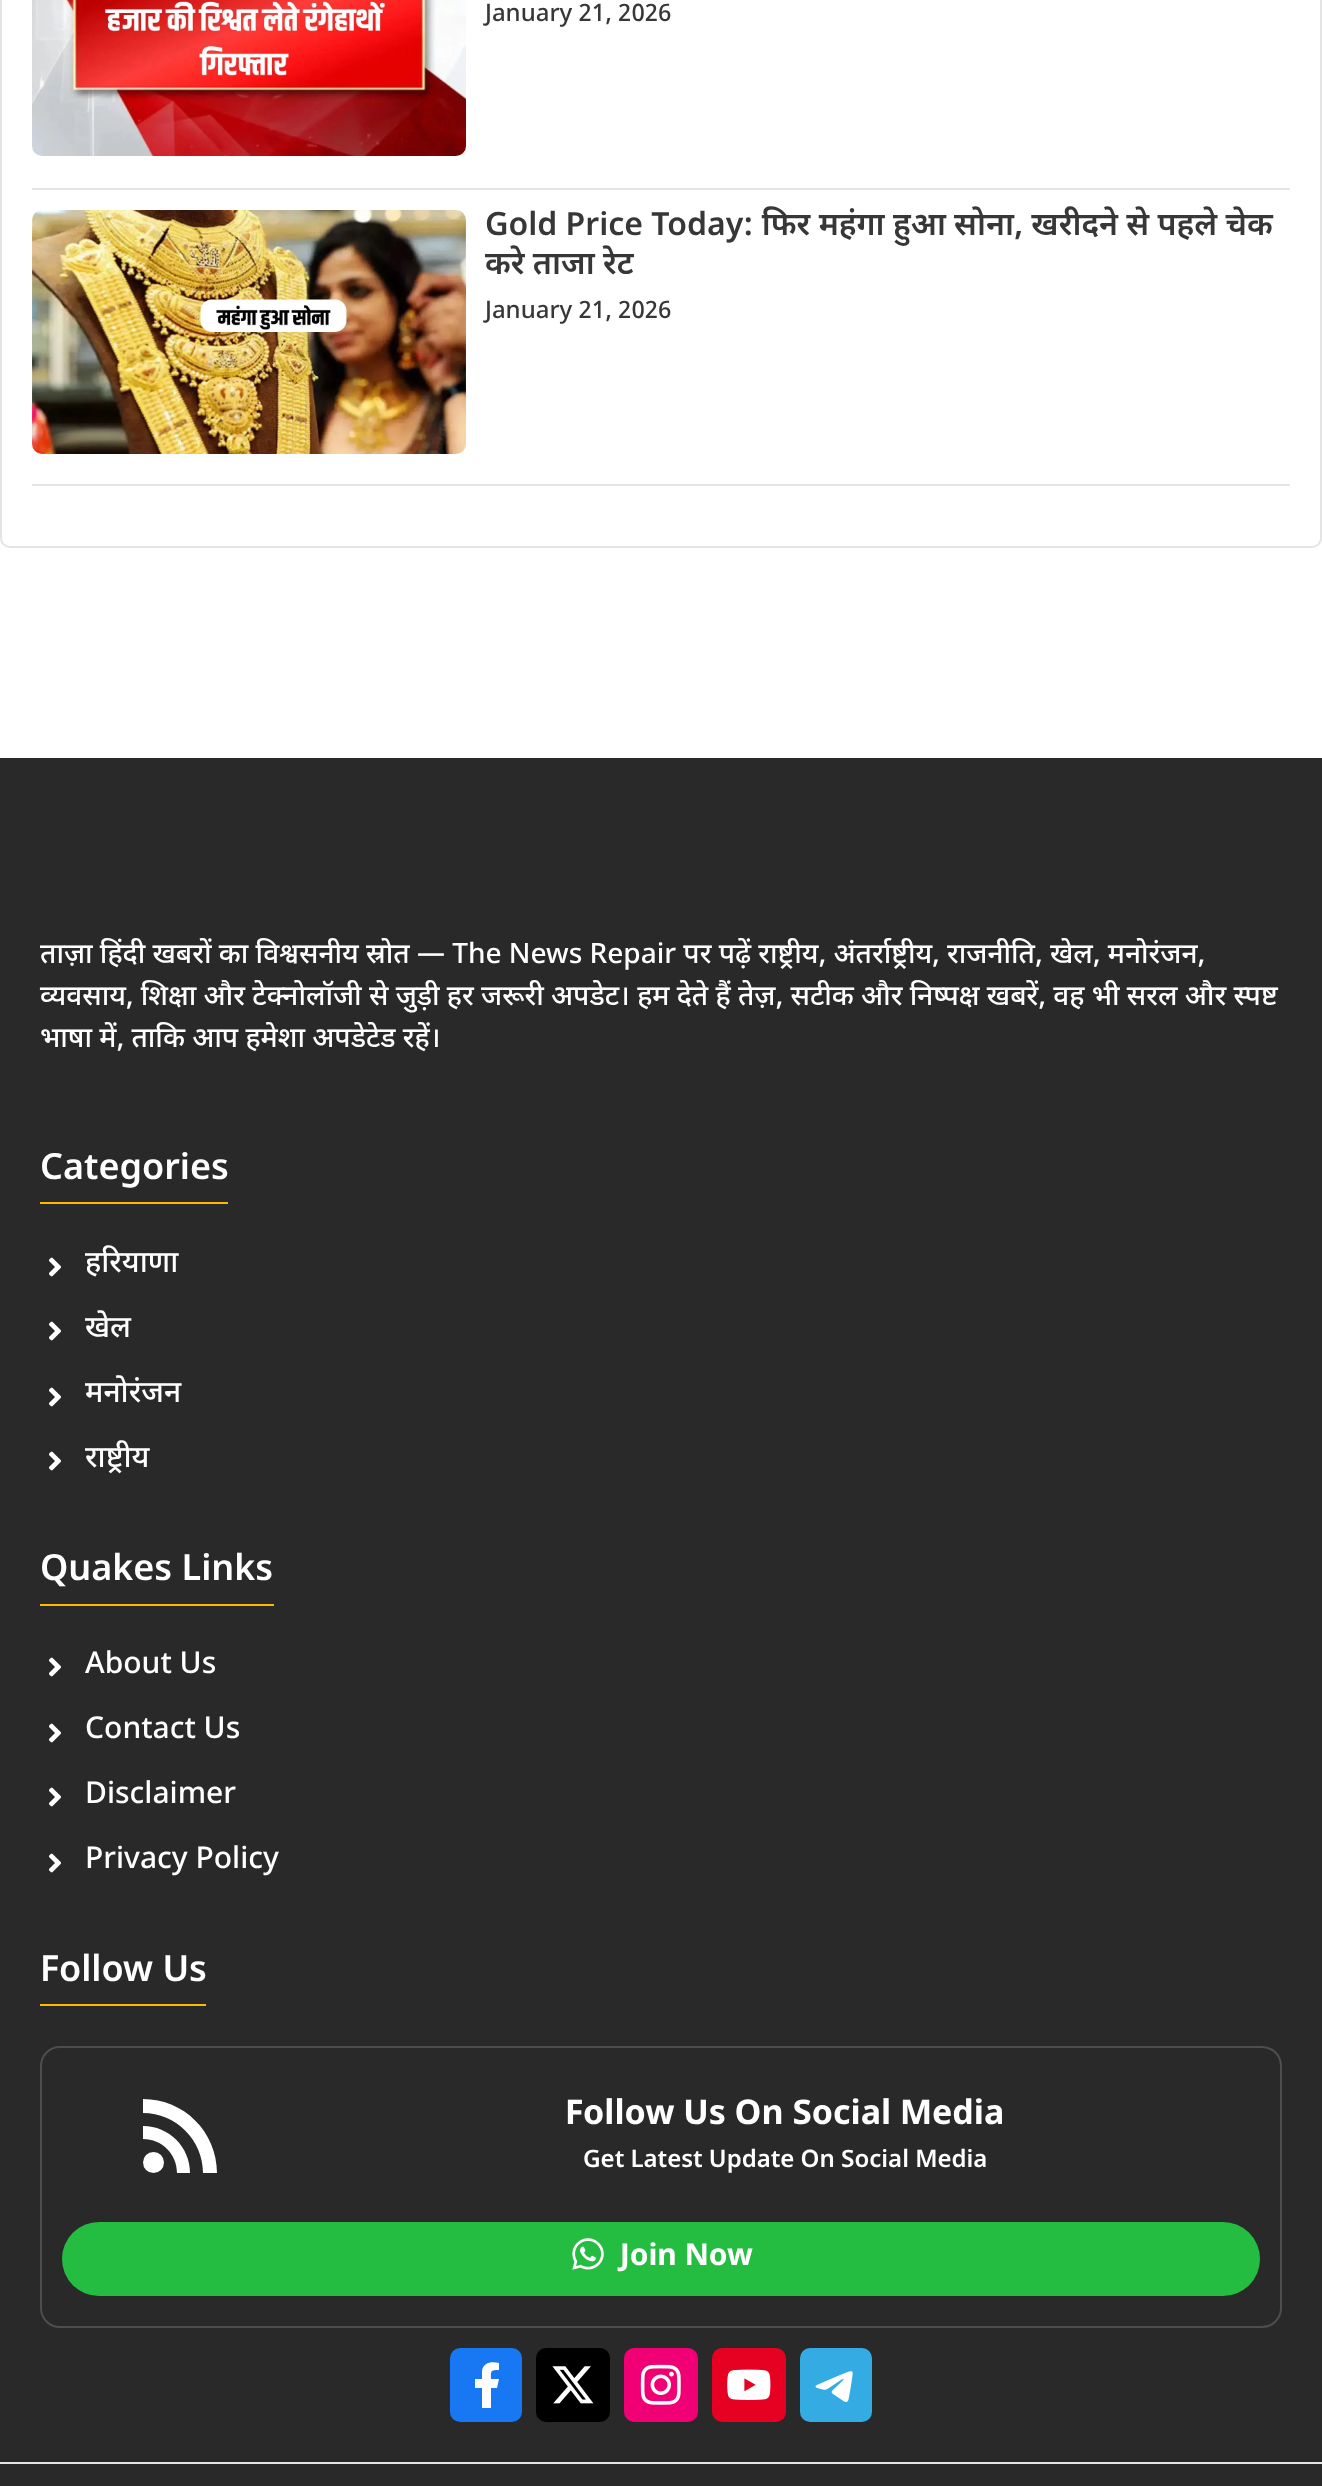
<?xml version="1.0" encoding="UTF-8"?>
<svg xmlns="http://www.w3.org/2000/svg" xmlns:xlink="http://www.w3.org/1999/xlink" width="1322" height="2486">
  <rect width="100%" height="100%" fill="#ffffff" />
  <rect x="1" y="-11" width="1320" height="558" rx="9" fill="none" stroke="#e4e4e4" stroke-width="2" />
  <rect x="32" y="188" width="1258" height="2" fill="#e4e4e4" />
  <image x="32" y="0" width="434" height="156" xlink:href="image1.png" />
  <rect x="32" y="484" width="1258" height="2" fill="#e4e4e4" />
  <image x="32" y="210" width="434" height="244" xlink:href="image2.png" />
  <rect y="758" width="1322" height="1728" fill="#292929" />
  <rect y="2462" width="1322" height="2" fill="#e4e4e4" />
  <rect x="40" y="1202" width="188" height="2" fill="#ffb700" />
  <image x="49" y="1257" width="12" height="20" xlink:href="image3.png" />
  <image x="49" y="1321" width="12" height="20" xlink:href="image3.png" />
  <image x="49" y="1387" width="12" height="20" xlink:href="image3.png" />
  <image x="49" y="1451" width="12" height="20" xlink:href="image3.png" />
  <rect x="40" y="1604" width="234" height="2" fill="#ffb700" />
  <image x="49" y="1657" width="12" height="20" xlink:href="image3.png" />
  <image x="49" y="1723" width="12" height="20" xlink:href="image3.png" />
  <image x="49" y="1787" width="12" height="20" xlink:href="image3.png" />
  <image x="49" y="1853" width="12" height="20" xlink:href="image3.png" />
  <rect x="40" y="2004" width="166" height="2" fill="#ffb700" />
  <rect x="41" y="2047" width="1240" height="280" rx="19" fill="none" stroke="#4e4e4e" stroke-width="2" />
  <circle cx="153.5" cy="2162.5" r="10.5" fill="#ffffff" />
  <path d="M 143 2099 v 14 c 33 0 60 27 60 60 h 14 c 0 -41 -33 -74 -74 -74 m 0 27 v 13 c 19 0 34 15 34 34 h 13 c 0 -26 -21 -47 -47 -47" fill="#ffffff" />
  <rect x="62" y="2222" width="1198" height="74" rx="37" fill="#25bd41" />
  <image x="572" y="2238" width="32" height="32" xlink:href="image4.png" />
  <rect x="450" y="2348" width="72" height="74" rx="10" fill="#1877f2" />
  <path d="M 497 2388 l 2 -9 h -8 c 0 -8 -1 -9 8 -9 v -7 c -7 -2 -16 -1 -17 8 v 8 h -7 v 9 h 7 v 20 h 9 v -20 z" fill="#ffffff" />
  <rect x="536" y="2348" width="74" height="74" rx="10" fill="#000000" />
  <image x="552" y="2366" width="42" height="38" xlink:href="image5.png" />
  <rect x="624" y="2348" width="74" height="74" rx="10" fill="#f00074" />
  <image x="640" y="2364" width="41" height="41" xlink:href="image6.png" />
  <rect x="712" y="2348" width="74" height="74" rx="10" fill="#e60022" />
  <image x="727" y="2369" width="44" height="31" xlink:href="image7.png" />
  <rect x="800" y="2348" width="72" height="74" rx="10" fill="#34ace3" />
  <image x="815" y="2371" width="38" height="31" xlink:href="image8.png" />
  <text x="485" y="21" style="font-family: Noto Sans Devanagari; font-size: 24px; font-weight: 500; fill: #373737">January 21, 2026</text>
  <text x="485" y="235" style="font-family: Noto Sans Devanagari; font-size: 32px; font-weight: 600; fill: #373737">Gold Price Today: फिर महंगा हुआ सोना, खरीदने से पहले चेक</text>
  <text x="485" y="274" style="font-family: Noto Sans Devanagari; font-size: 32px; font-weight: 600; fill: #373737">करे ताजा रेट</text>
  <text x="485" y="318" style="font-family: Noto Sans Devanagari; font-size: 24px; font-weight: 500; fill: #373737">January 21, 2026</text>
  <text x="40" y="963" style="font-family: Noto Sans Devanagari; font-size: 28px; font-weight: 500; fill: #ffffff">ताज़ा हिंदी खबरों का विश्वसनीय स्रोत — The News Repair पर पढ़ें राष्ट्रीय, अंतर्राष्ट्रीय, राजनीति, खेल, मनोरंजन,</text>
  <text x="40" y="1005" style="font-family: Noto Sans Devanagari; font-size: 28px; font-weight: 500; fill: #ffffff">व्यवसाय, शिक्षा और टेक्नोलॉजी से जुड़ी हर जरूरी अपडेट। हम देते हैं तेज़, सटीक और निष्पक्ष खबरें, वह भी सरल और स्पष्ट</text>
  <text x="40" y="1047" style="font-family: Noto Sans Devanagari; font-size: 28px; font-weight: 500; fill: #ffffff">भाषा में, ताकि आप हमेशा अपडेटेड रहें।</text>
  <text x="40" y="1179" style="font-family: Noto Sans Devanagari; font-size: 36px; font-weight: 600; fill: #ffffff">Categories</text>
  <text x="85" y="1272" style="font-family: Noto Sans Devanagari; font-size: 30px; font-weight: 500; fill: #ffffff">हरियाणा</text>
  <text x="85" y="1337" style="font-family: Noto Sans Devanagari; font-size: 30px; font-weight: 500; fill: #ffffff">खेल</text>
  <text x="85" y="1402" style="font-family: Noto Sans Devanagari; font-size: 30px; font-weight: 500; fill: #ffffff">मनोरंजन</text>
  <text x="85" y="1467" style="font-family: Noto Sans Devanagari; font-size: 30px; font-weight: 500; fill: #ffffff">राष्ट्रीय</text>
  <text x="40" y="1580" style="font-family: Noto Sans Devanagari; font-size: 36px; font-weight: 600; fill: #ffffff">Quakes Links</text>
  <text x="85" y="1673" style="font-family: Noto Sans Devanagari; font-size: 30px; font-weight: 500; fill: #ffffff">About Us</text>
  <text x="85" y="1738" style="font-family: Noto Sans Devanagari; font-size: 30px; font-weight: 500; fill: #ffffff">Contact Us</text>
  <text x="85" y="1803" style="font-family: Noto Sans Devanagari; font-size: 30px; font-weight: 500; fill: #ffffff">Disclaimer</text>
  <text x="85" y="1868" style="font-family: Noto Sans Devanagari; font-size: 30px; font-weight: 500; fill: #ffffff">Privacy Policy</text>
  <text x="40" y="1981" style="font-family: Noto Sans Devanagari; font-size: 36px; font-weight: 600; fill: #ffffff">Follow Us</text>
  <text x="565" y="2124" style="font-family: Noto Sans Devanagari; font-size: 34px; font-weight: bold; fill: #ffffff">Follow Us On Social Media</text>
  <text x="583" y="2167" style="font-family: Noto Sans Devanagari; font-size: 24px; font-weight: 600; fill: #ffffff">Get Latest Update On Social Media</text>
  <text x="620" y="2265" style="font-family: Noto Sans Devanagari; font-size: 30px; font-weight: bold; fill: #ffffff">Join Now</text>
</svg>
